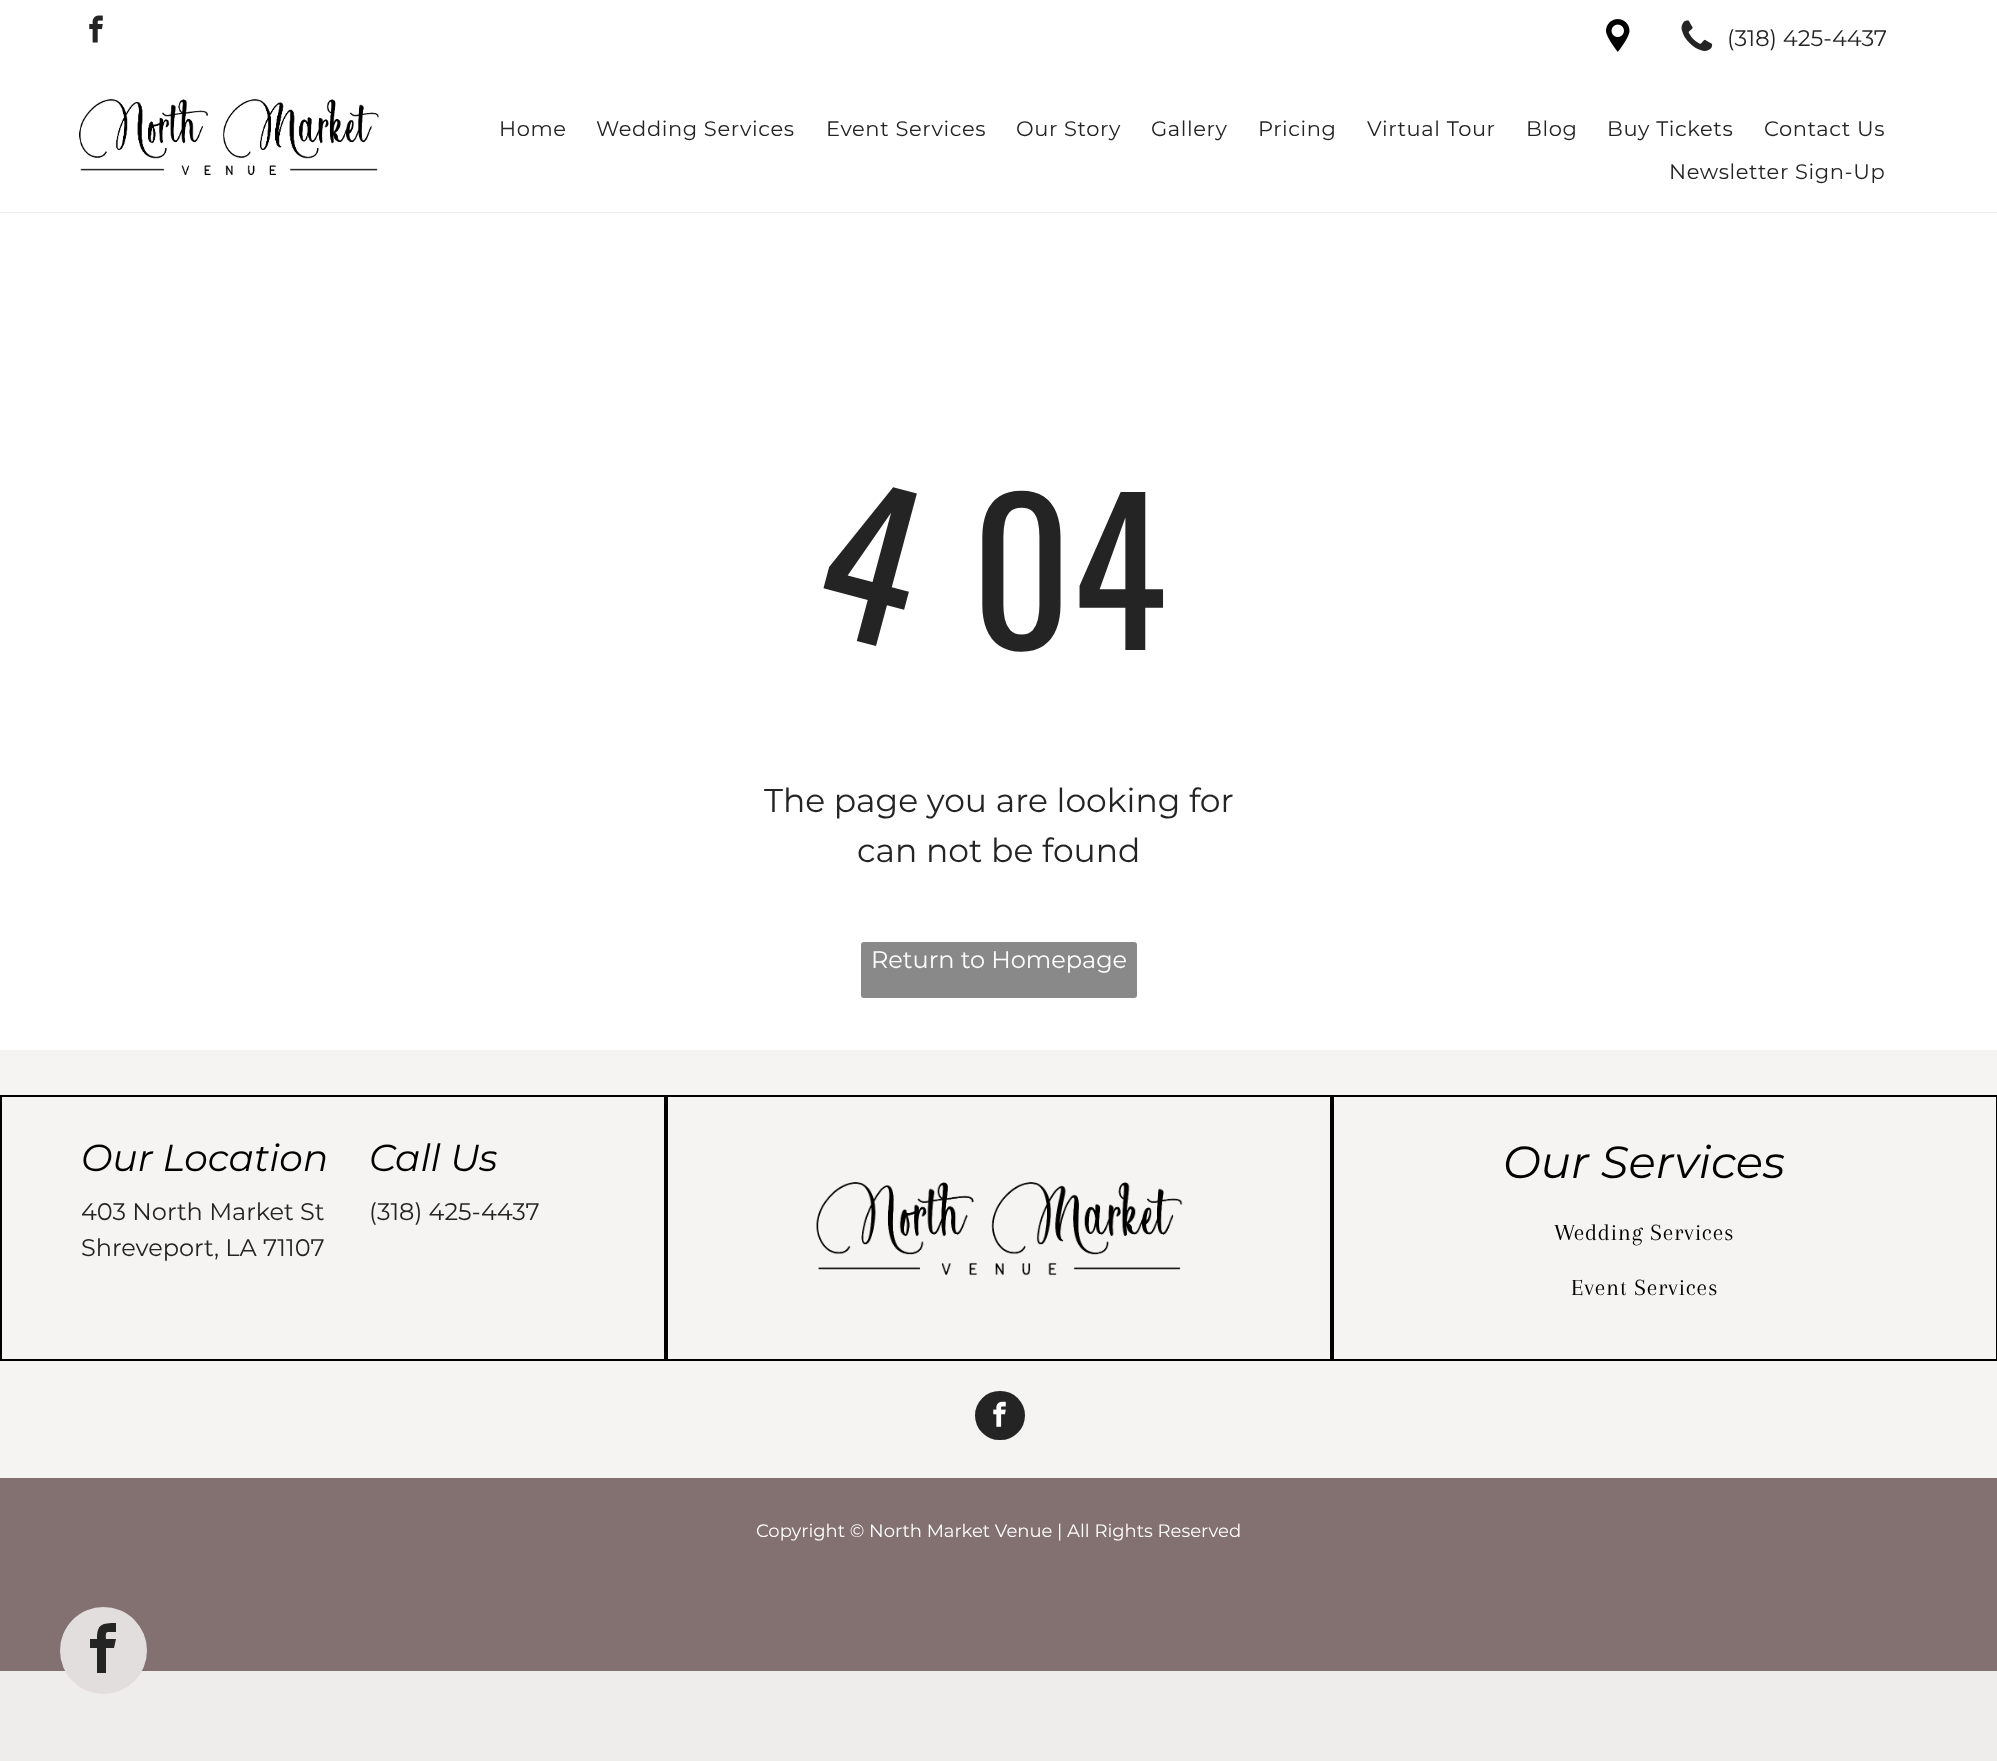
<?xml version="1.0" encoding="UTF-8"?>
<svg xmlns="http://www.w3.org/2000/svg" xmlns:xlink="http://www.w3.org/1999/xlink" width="1997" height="1761">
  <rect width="100%" height="100%" fill="#efecec" />
  <rect width="1997" height="212" fill="#ffffff" />
  <image x="89" y="15" width="14" height="28" xlink:href="image1.png" />
  <image x="1606" y="19" width="24" height="33" xlink:href="image2.png" />
  <image x="1681" y="20" width="32" height="31" xlink:href="image3.png" />
  <image x="79" y="99" width="300" height="77" xlink:href="image4.png" />
  <rect y="213" width="1997" height="837" fill="#ffffff" />
  <rect x="861" y="942" width="276" height="56" rx="3" fill="#898989" />
  <rect y="1050" width="1997" height="428" fill="#f5f4f3" />
  <rect x="1" y="1096" width="664" height="264" fill="none" stroke="#000000" stroke-width="2" />
  <rect x="667" y="1096" width="664" height="264" fill="none" stroke="#000000" stroke-width="2" />
  <image x="816" y="1182" width="367" height="94" xlink:href="image5.png" />
  <rect x="1333" y="1096" width="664" height="264" fill="none" stroke="#000000" stroke-width="2" />
  <rect x="975" y="1391" width="50" height="49" rx="24.5" fill="#242424" />
  <image x="993" y="1401" width="13" height="26" xlink:href="image6.png" />
  <rect y="1478" width="1997" height="193" fill="#837071" />
  <circle cx="103.5" cy="1650.5" r="43.5" fill="#e2dede" />
  <path d="M 108 1632 h 8 v -9 c -14 0 -19 1 -19 16 h -7 v 9 h 7 v 25 h 9 v -25 h 8 l 2 -9 h -10 c 0 -2 -1 -7 2 -7 z" fill="#242424" />
  <text x="1727" y="46" style="font-family: Montserrat; font-size: 22.5px; fill: #242424">(318) 425-4437</text>
  <text x="499" y="136" style="font-family: Montserrat; font-size: 21px; letter-spacing: 0.6px; fill: #242424">Home</text>
  <text x="596" y="136" style="font-family: Montserrat; font-size: 21px; letter-spacing: 0.6px; fill: #242424">Wedding Services</text>
  <text x="826" y="136" style="font-family: Montserrat; font-size: 21px; letter-spacing: 0.6px; fill: #242424">Event Services</text>
  <text x="1016" y="136" style="font-family: Montserrat; font-size: 21px; letter-spacing: 0.6px; fill: #242424">Our Story</text>
  <text x="1151" y="136" style="font-family: Montserrat; font-size: 21px; letter-spacing: 0.6px; fill: #242424">Gallery</text>
  <text x="1258" y="136" style="font-family: Montserrat; font-size: 21px; letter-spacing: 0.6px; fill: #242424">Pricing</text>
  <text x="1367" y="136" style="font-family: Montserrat; font-size: 21px; letter-spacing: 0.6px; fill: #242424">Virtual Tour</text>
  <text x="1526" y="136" style="font-family: Montserrat; font-size: 21px; letter-spacing: 0.6px; fill: #242424">Blog</text>
  <text x="1607" y="136" style="font-family: Montserrat; font-size: 21px; letter-spacing: 0.6px; fill: #242424">Buy Tickets</text>
  <text x="1764" y="136" style="font-family: Montserrat; font-size: 21px; letter-spacing: 0.6px; fill: #242424">Contact Us</text>
  <text x="1669" y="179" style="font-family: Montserrat; font-size: 21px; letter-spacing: 0.6px; fill: #242424">Newsletter Sign-Up</text>
  <text x="805" y="627" transform="rotate(15 805 627)" style="font-family: Oswald; font-size: 195px; fill: #242424">4</text>
  <text x="971" y="650" style="font-family: Oswald; font-size: 195px; fill: #242424">04</text>
  <text x="764" y="812" style="font-family: Montserrat; font-size: 33px; fill: #242424">The page you are looking for</text>
  <text x="857" y="862" style="font-family: Montserrat; font-size: 33px; fill: #242424">can not be found</text>
  <text x="871" y="968" style="font-family: Montserrat; font-size: 24px; fill: #ffffff">Return to Homepage</text>
  <text x="81" y="1171" style="font-family: Montserrat; font-size: 37.5px; font-style: italic; fill: #000000">Our Location</text>
  <text x="81" y="1220" style="font-family: Montserrat; font-size: 24px; fill: #242424">403 North Market St</text>
  <text x="81" y="1256" style="font-family: Montserrat; font-size: 24px; fill: #242424">Shreveport, LA 71107</text>
  <text x="369" y="1171" style="font-family: Montserrat; font-size: 37.5px; font-style: italic; fill: #000000">Call Us</text>
  <text x="369" y="1220" style="font-family: Montserrat; font-size: 24px; fill: #242424">(318) 425-4437</text>
  <text x="1503" y="1178" style="font-family: Montserrat; font-size: 45px; font-style: italic; fill: #000000">Our Services</text>
  <text x="1554" y="1240" style="font-family: Arapey; font-size: 24px; letter-spacing: 0.75px; fill: #000000">Wedding Services</text>
  <text x="1571" y="1295" style="font-family: Arapey; font-size: 24px; letter-spacing: 0.75px; fill: #000000">Event Services</text>
  <text x="756" y="1537" style="font-family: Montserrat; font-size: 18px; fill: #ffffff">Copyright © North Market Venue | All Rights Reserved</text>
</svg>
